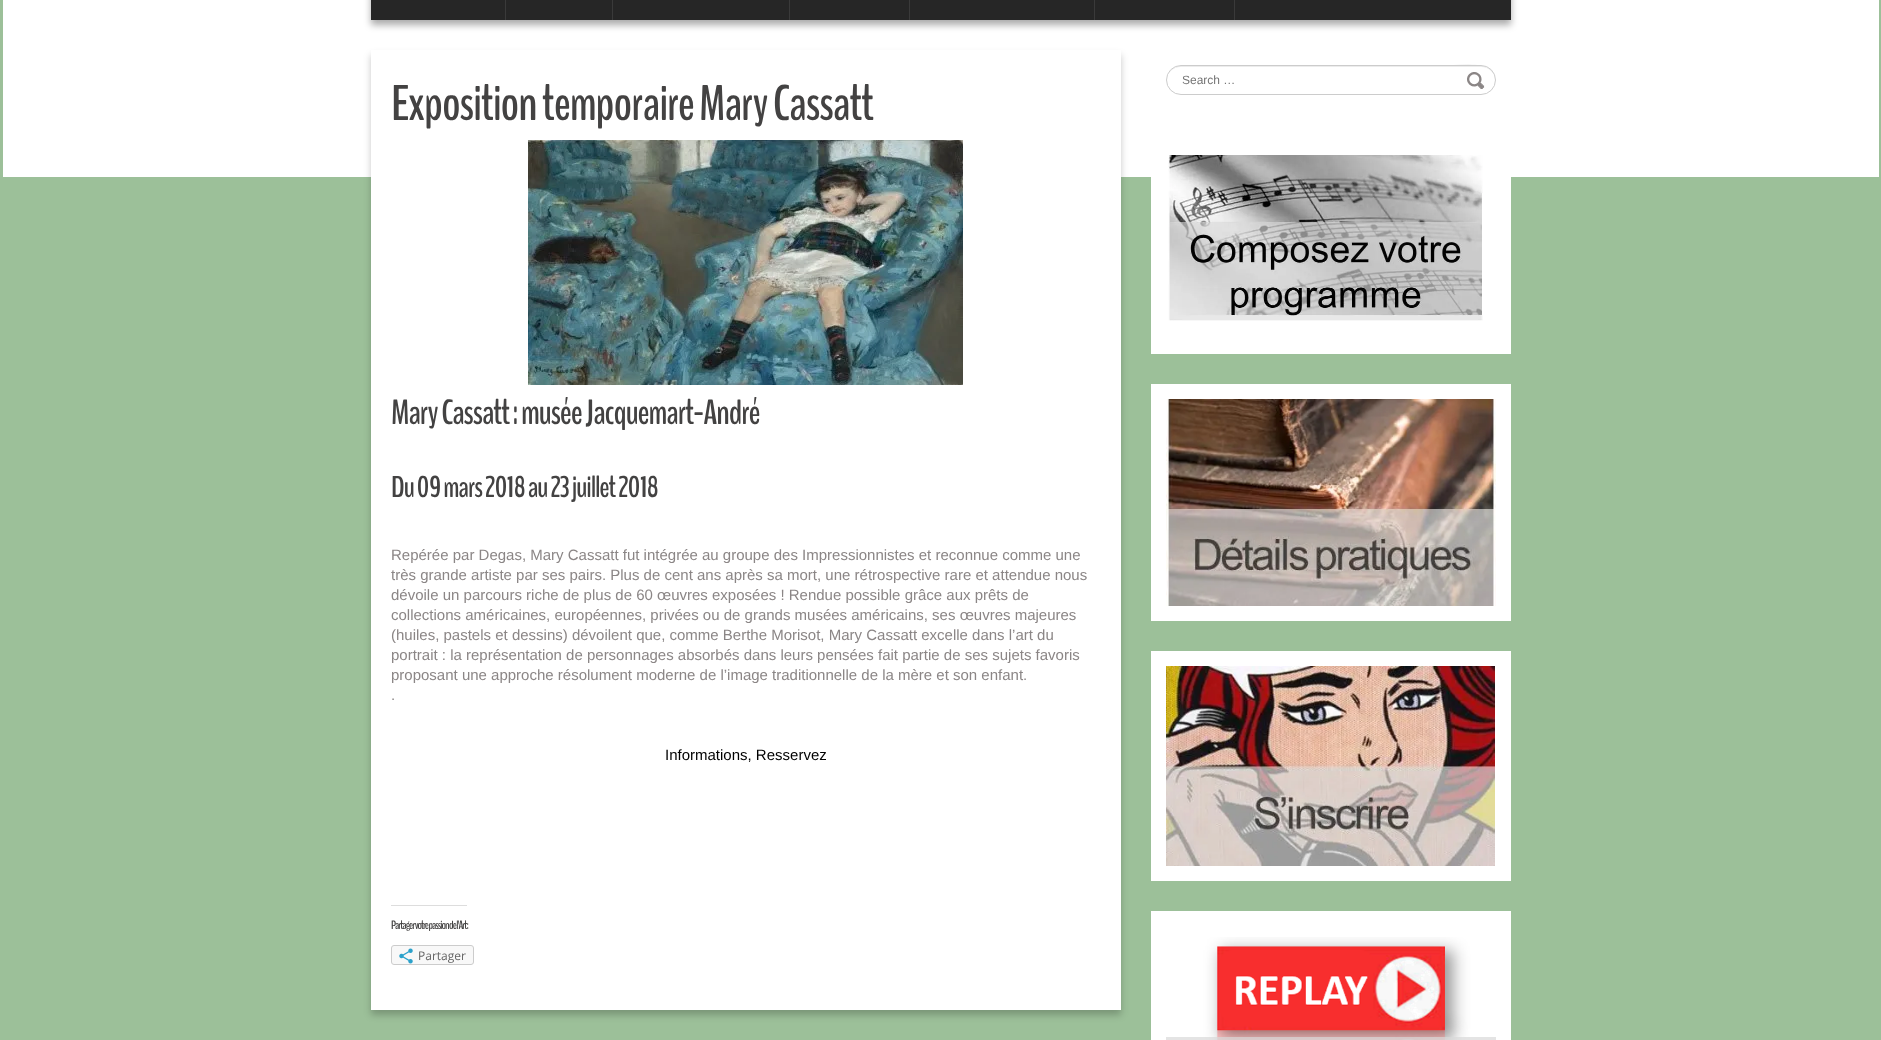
<?xml version="1.0" encoding="UTF-8"?>
<svg xmlns="http://www.w3.org/2000/svg" xmlns:xlink="http://www.w3.org/1999/xlink" width="1881" height="1040">
  <rect width="100%" height="100%" fill="#9cc099" />
  <rect x="3" width="1876" height="177" fill="#ffffff" />
  <rect x="371" y="-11" width="1140" height="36" fill="#000000" fill-opacity="0.33" filter="blur(3.5px)" />
  <rect x="371" width="1140" height="20" fill="#262626" />
  <rect x="505" width="1" height="20" fill="#3a3a3a" />
  <rect x="612" width="1" height="20" fill="#3a3a3a" />
  <rect x="789" width="1" height="20" fill="#3a3a3a" />
  <rect x="909" width="1" height="20" fill="#3a3a3a" />
  <rect x="1094" width="1" height="20" fill="#3a3a3a" />
  <rect x="1234" width="1" height="20" fill="#3a3a3a" />
  <path d="M 1181 67 h 300 c 8 0 14 6 14 13 c 1 -22 -38 -14 -64 -14 h -250 c -8 0 -14 7 -14 14 c 0 -7 6 -13 14 -13 z" fill="#ececec" />
  <rect x="1166.5" y="65.5" width="329" height="29" rx="14.5" fill="none" stroke="#cccccc" />
  <image x="1467" y="72" width="18" height="17" xlink:href="image1.png" />
  <rect x="1151" y="177" width="360" height="177" fill="#ffffff" />
  <image x="1168" y="155" width="315" height="166" xlink:href="image2.png" />
  <rect x="1151" y="384" width="360" height="237" fill="#ffffff" />
  <image x="1166" y="399" width="330" height="207" xlink:href="image3.png" />
  <rect x="1151" y="651" width="360" height="230" fill="#ffffff" />
  <image x="1166" y="666" width="329" height="200" xlink:href="image4.png" />
  <rect x="1151" y="911" width="360" height="129" fill="#ffffff" />
  <image x="1166" y="937" width="330" height="103" xlink:href="image5.png" />
  <rect x="371" y="55" width="750" height="960" fill="#000000" fill-opacity="0.22" filter="blur(3.5px)" />
  <rect x="371" y="50" width="750" height="960" fill="#ffffff" />
  <image x="528" y="140" width="435" height="245" xlink:href="image6.png" />
  <rect x="391" y="905" width="76" height="1" fill="#dddddd" />
  <rect x="391.5" y="945.5" width="82" height="19" rx="2.5" fill="#f8f8f8" stroke="#cccccc" />
  <image x="399" y="948" width="14" height="16" xlink:href="image7.png" />
  <text x="1182" y="84" style="font-family: Liberation Sans; font-size: 12px; fill: #757575">Search …</text>
  <text x="391" y="120" style="font-family: BenchNine; font-size: 50px; font-weight: bold; letter-spacing: -1px; fill: #434242">Exposition temporaire Mary Cassatt</text>
  <text x="391" y="424" style="font-family: BenchNine; font-size: 35px; font-weight: bold; letter-spacing: -1px; fill: #434242">Mary Cassatt : musée Jacquemart-André</text>
  <text x="391" y="497" style="font-family: BenchNine; font-size: 30px; font-weight: bold; letter-spacing: -1px; fill: #434242">Du 09 mars 2018 au 23 juillet 2018</text>
  <text x="391" y="560" style="font-family: Liberation Sans; font-size: 15px; fill: #8b8686">Repérée par Degas, Mary Cassatt fut intégrée au groupe des Impressionnistes et reconnue comme une</text>
  <text x="391" y="580" style="font-family: Liberation Sans; font-size: 15px; fill: #8b8686">très grande artiste par ses pairs. Plus de cent ans après sa mort, une rétrospective rare et attendue nous</text>
  <text x="391" y="600" style="font-family: Liberation Sans; font-size: 15px; fill: #8b8686">dévoile un parcours riche de plus de 60 œuvres exposées ! Rendue possible grâce aux prêts de</text>
  <text x="391" y="620" style="font-family: Liberation Sans; font-size: 15px; fill: #8b8686">collections américaines, européennes, privées ou de grands musées américains, ses œuvres majeures</text>
  <text x="391" y="640" style="font-family: Liberation Sans; font-size: 15px; fill: #8b8686">(huiles, pastels et dessins) dévoilent que, comme Berthe Morisot, Mary Cassatt excelle dans l’art du</text>
  <text x="391" y="660" style="font-family: Liberation Sans; font-size: 15px; fill: #8b8686">portrait : la représentation de personnages absorbés dans leurs pensées fait partie de ses sujets favoris</text>
  <text x="391" y="680" style="font-family: Liberation Sans; font-size: 15px; fill: #8b8686">proposant une approche résolument moderne de l’image traditionnelle de la mère et son enfant.</text>
  <text x="391" y="700" style="font-family: Liberation Sans; font-size: 15px; fill: #8b8686">.</text>
  <text x="665" y="760" style="font-family: Liberation Sans; font-size: 15px; fill: #000000">Informations, Resservez</text>
  <text x="391" y="929" style="font-family: BenchNine; font-size: 12px; font-weight: bold; letter-spacing: -1px; fill: #434242">Partager votre passion de l'Art :</text>
  <text x="418" y="960" style="font-family: Open Sans; font-size: 12px; fill: #656565">Partager</text>
</svg>
